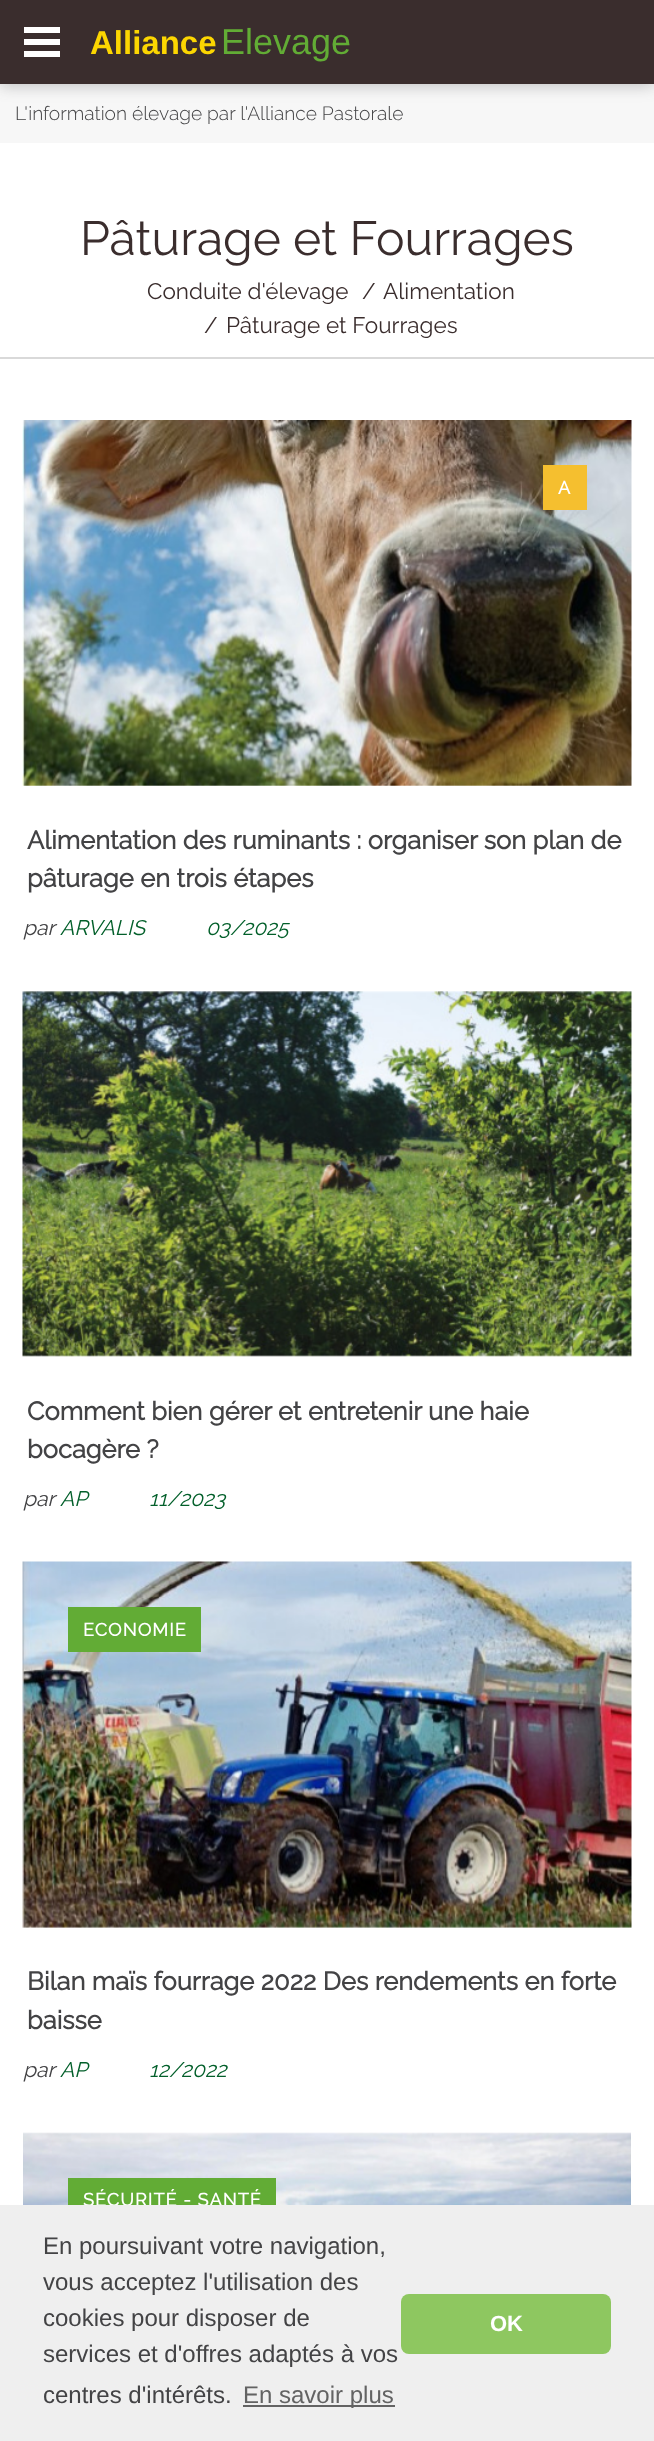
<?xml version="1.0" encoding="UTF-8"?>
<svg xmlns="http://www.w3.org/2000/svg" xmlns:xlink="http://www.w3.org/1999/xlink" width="654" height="2441">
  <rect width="100%" height="100%" fill="#ffffff" />
  <rect y="84" width="654" height="59" fill="#f7f7f7" />
  <rect y="2" width="654" height="84" fill="#434345" fill-opacity="0.3" filter="blur(7.5px)" />
  <rect width="654" height="84" fill="#3a2d2d" />
  <rect x="24" y="39" width="36" height="6" fill="#ffffff" />
  <rect x="24" y="27" width="36" height="6" fill="#ffffff" />
  <rect x="24" y="51" width="36" height="6" fill="#ffffff" />
  <rect y="357" width="654" height="2" fill="#d9d9d9" />
  <image x="22" y="420" width="610" height="366" xlink:href="image1.png" />
  <rect x="543" y="465" width="44" height="45" fill="#f5bf2f" />
  <image x="22" y="991" width="610" height="366" xlink:href="image2.png" />
  <image x="22" y="1561" width="610" height="367" xlink:href="image3.png" />
  <rect x="68" y="1607" width="133" height="45" fill="#62ac35" />
  <image x="23" y="2132" width="608" height="73" xlink:href="image4.png" />
  <rect x="68" y="2178" width="208" height="27" fill="#62ac35" />
  <text x="90" y="54" style="font-family: Liberation Sans; font-size: 33px; font-weight: bold; fill: #fcd601">Alliance</text>
  <text x="221" y="54" style="font-family: Liberation Sans; font-size: 36px; fill: #62ac35">Elevage</text>
  <text x="15" y="120" style="font-family: Raleway; font-size: 19.2px; font-weight: 300; fill: #434345">L'information élevage par l'Alliance Pastorale</text>
  <text x="80" y="255" style="font-family: Raleway; font-size: 48px; fill: #3a2d2d">Pâturage et Fourrages</text>
  <text x="147" y="299" style="font-family: Raleway; font-size: 22.5px; fill: #3a2d2d">Conduite d'élevage</text>
  <text x="362" y="299" style="font-family: Raleway; font-size: 22.5px; fill: #3a2d2d">/</text>
  <text x="383" y="299" style="font-family: Raleway; font-size: 22.5px; fill: #3a2d2d">Alimentation</text>
  <text x="204" y="333" style="font-family: Raleway; font-size: 22.5px; fill: #3a2d2d">/</text>
  <text x="226" y="333" style="font-family: Raleway; font-size: 22.5px; fill: #3a2d2d">Pâturage et Fourrages</text>
  <text x="558" y="494" style="font-family: Raleway; font-size: 18px; font-weight: bold; letter-spacing: 1.1px; fill: #ffffff">A</text>
  <text x="27" y="849" style="font-family: Raleway; font-size: 25.5px; font-weight: bold; fill: #434345">Alimentation des ruminants : organiser son plan de</text>
  <text x="27" y="887" style="font-family: Raleway; font-size: 25.5px; font-weight: bold; fill: #434345">pâturage en trois étapes</text>
  <text x="23" y="935" style="font-family: Raleway; font-size: 21px; font-style: italic; fill: #434345">par</text>
  <text x="60" y="935" style="font-family: Raleway; font-size: 21px; font-style: italic; fill: #025f2a">ARVALIS</text>
  <text x="206" y="935" style="font-family: Raleway; font-size: 21px; font-style: italic; fill: #025f2a">03/2025</text>
  <text x="27" y="1420" style="font-family: Raleway; font-size: 25.5px; font-weight: bold; fill: #434345">Comment bien gérer et entretenir une haie</text>
  <text x="27" y="1458" style="font-family: Raleway; font-size: 25.5px; font-weight: bold; fill: #434345">bocagère ?</text>
  <text x="23" y="1506" style="font-family: Raleway; font-size: 21px; font-style: italic; fill: #434345">par</text>
  <text x="60" y="1506" style="font-family: Raleway; font-size: 21px; font-style: italic; fill: #025f2a">AP</text>
  <text x="149" y="1506" style="font-family: Raleway; font-size: 21px; font-style: italic; fill: #025f2a">11/2023</text>
  <text x="83" y="1636" style="font-family: Raleway; font-size: 18px; font-weight: bold; letter-spacing: 1.1px; fill: #ffffff">ECONOMIE</text>
  <text x="27" y="1990" style="font-family: Raleway; font-size: 25.5px; font-weight: bold; fill: #434345">Bilan maïs fourrage 2022 Des rendements en forte</text>
  <text x="27" y="2029" style="font-family: Raleway; font-size: 25.5px; font-weight: bold; fill: #434345">baisse</text>
  <text x="23" y="2077" style="font-family: Raleway; font-size: 21px; font-style: italic; fill: #434345">par</text>
  <text x="60" y="2077" style="font-family: Raleway; font-size: 21px; font-style: italic; fill: #025f2a">AP</text>
  <text x="149" y="2077" style="font-family: Raleway; font-size: 21px; font-style: italic; fill: #025f2a">12/2022</text>
  <text x="83" y="2206" style="font-family: Raleway; font-size: 18px; font-weight: bold; letter-spacing: 1.1px; fill: #ffffff">SÉCURITÉ - SANTÉ</text>
  <rect y="2205" width="654" height="236" fill="#efefef" />
  <text x="43" y="2254" style="font-family: Liberation Sans; font-size: 24px; fill: #434345">En poursuivant votre navigation,</text>
  <text x="43" y="2290" style="font-family: Liberation Sans; font-size: 24px; fill: #434345">vous acceptez l'utilisation des</text>
  <text x="43" y="2326" style="font-family: Liberation Sans; font-size: 24px; fill: #434345">cookies pour disposer de</text>
  <text x="43" y="2362" style="font-family: Liberation Sans; font-size: 24px; fill: #434345">services et d'offres adaptés à vos</text>
  <text x="43" y="2403" style="font-family: Liberation Sans; font-size: 24px; fill: #434345">centres d'intérêts.</text>
  <rect x="243" y="2405" width="152" height="2" fill="#636363" />
  <text x="243" y="2403" style="font-family: Liberation Sans; font-size: 24px; fill: #636363">En savoir plus</text>
  <rect x="401" y="2294" width="210" height="60" rx="8" fill="#8ec760" />
  <text x="490" y="2331" style="font-family: Liberation Sans; font-size: 22px; font-weight: bold; fill: #ffffff">OK</text>
</svg>
